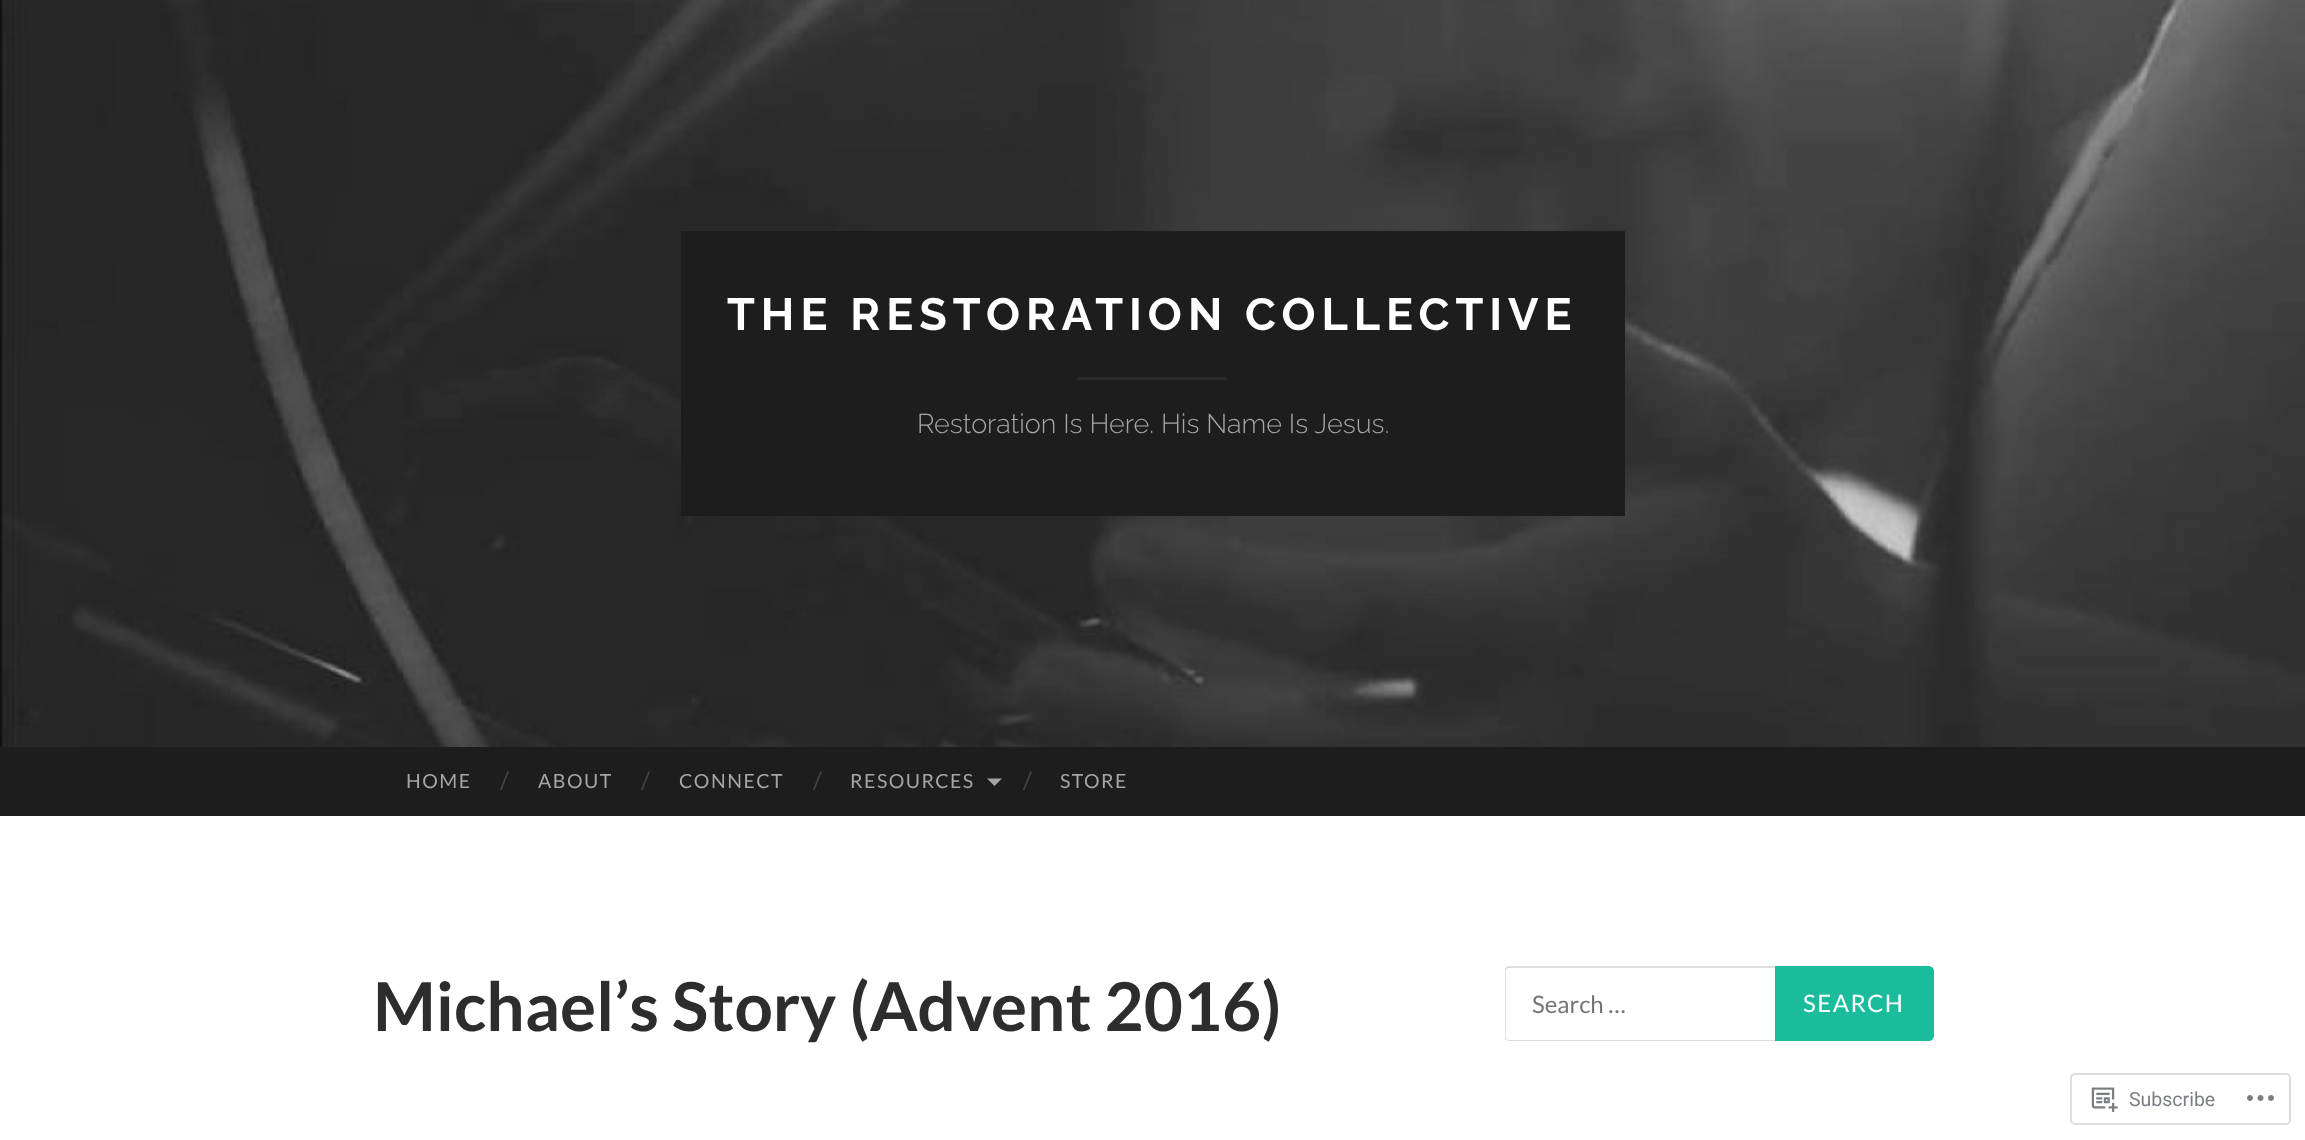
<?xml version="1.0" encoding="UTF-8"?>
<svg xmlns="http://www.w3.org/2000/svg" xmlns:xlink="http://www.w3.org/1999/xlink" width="2305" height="1140">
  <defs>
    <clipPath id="clip1"><rect x="1505" y="966" width="429" height="75" /></clipPath>
  </defs>
  <rect width="100%" height="100%" fill="#ffffff" />
  <image x="0" y="0" width="2305" height="747" xlink:href="image1.png" />
  <rect x="681" y="231" width="944" height="285" fill="#1d1d1d" />
  <rect x="1077" y="377" width="150" height="3" fill="#2b2b2b" />
  <rect y="747" width="2305" height="69" fill="#1d1d1d" />
  <path d="M 987 778.5 h 15 l -7.5 7.5 z" fill="#a5a5a5" />
  <g clip-path="url(#clip1)">
    <path d="M 1509 966 h 420 v 75 h -420 c -2 0 -5 -2 -5 -5 v -66 c 0 -2 3 -4 5 -4 z m 0 2 h 420 v 72 h -420 c -2 0 -3 -2 -3 -4 v -66 c 0 -1 1 -2 3 -2 z" fill="#dddddd" fill-rule="evenodd" />
  </g>
  <path d="M 1776 967 h 153 c 2 0 4 2 4 4 v 65 c 0 2 -2 4 -4 4 h -153 z" fill="#1abc9c" stroke="#1abc9c" stroke-width="2" />
  <rect x="2071" y="1074" width="219" height="50" rx="4" fill="none" stroke="#dddddf" stroke-width="2" />
  <image x="2091" y="1087" width="27" height="25" xlink:href="image2.png" />
  <image x="2247" y="1095" width="27" height="6" xlink:href="image3.png" />
  <text x="727" y="330" style="font-family: Raleway; font-size: 45px; font-weight: bold; letter-spacing: 6px; fill: #ffffff">THE RESTORATION COLLECTIVE</text>
  <text x="917" y="433" style="font-family: Raleway; font-size: 27px; font-weight: 300; fill: #a5a5a5">Restoration Is Here. His Name Is Jesus.</text>
  <text x="406" y="788" style="font-family: Lato; font-size: 19.5px; letter-spacing: 1.5px; fill: #a5a5a5">HOME</text>
  <text x="500" y="789" style="font-family: Lato; font-size: 24px; fill: #444444">/</text>
  <text x="538" y="788" style="font-family: Lato; font-size: 19.5px; letter-spacing: 1.5px; fill: #a5a5a5">ABOUT</text>
  <text x="641" y="789" style="font-family: Lato; font-size: 24px; fill: #444444">/</text>
  <text x="679" y="788" style="font-family: Lato; font-size: 19.5px; letter-spacing: 1.5px; fill: #a5a5a5">CONNECT</text>
  <text x="813" y="789" style="font-family: Lato; font-size: 24px; fill: #444444">/</text>
  <text x="850" y="788" style="font-family: Lato; font-size: 19.5px; letter-spacing: 1.5px; fill: #a5a5a5">RESOURCES</text>
  <text x="1023" y="789" style="font-family: Lato; font-size: 24px; fill: #444444">/</text>
  <text x="1060" y="788" style="font-family: Lato; font-size: 19.5px; letter-spacing: 1.5px; fill: #a5a5a5">STORE</text>
  <text x="373" y="1031" style="font-family: Lato; font-size: 67.5px; font-weight: bold; fill: #2d2d2d">Michael’s Story (Advent 2016)</text>
  <text x="1532" y="1013" style="font-family: Lato; font-size: 24px; fill: #757575">Search …</text>
  <text x="1803" y="1012" style="font-family: Lato; font-size: 24px; letter-spacing: 1.5px; fill: #ffffff">SEARCH</text>
  <text x="2129" y="1106" style="font-family: Roboto; font-size: 19.5px; fill: #7b7f85">Subscribe</text>
</svg>
